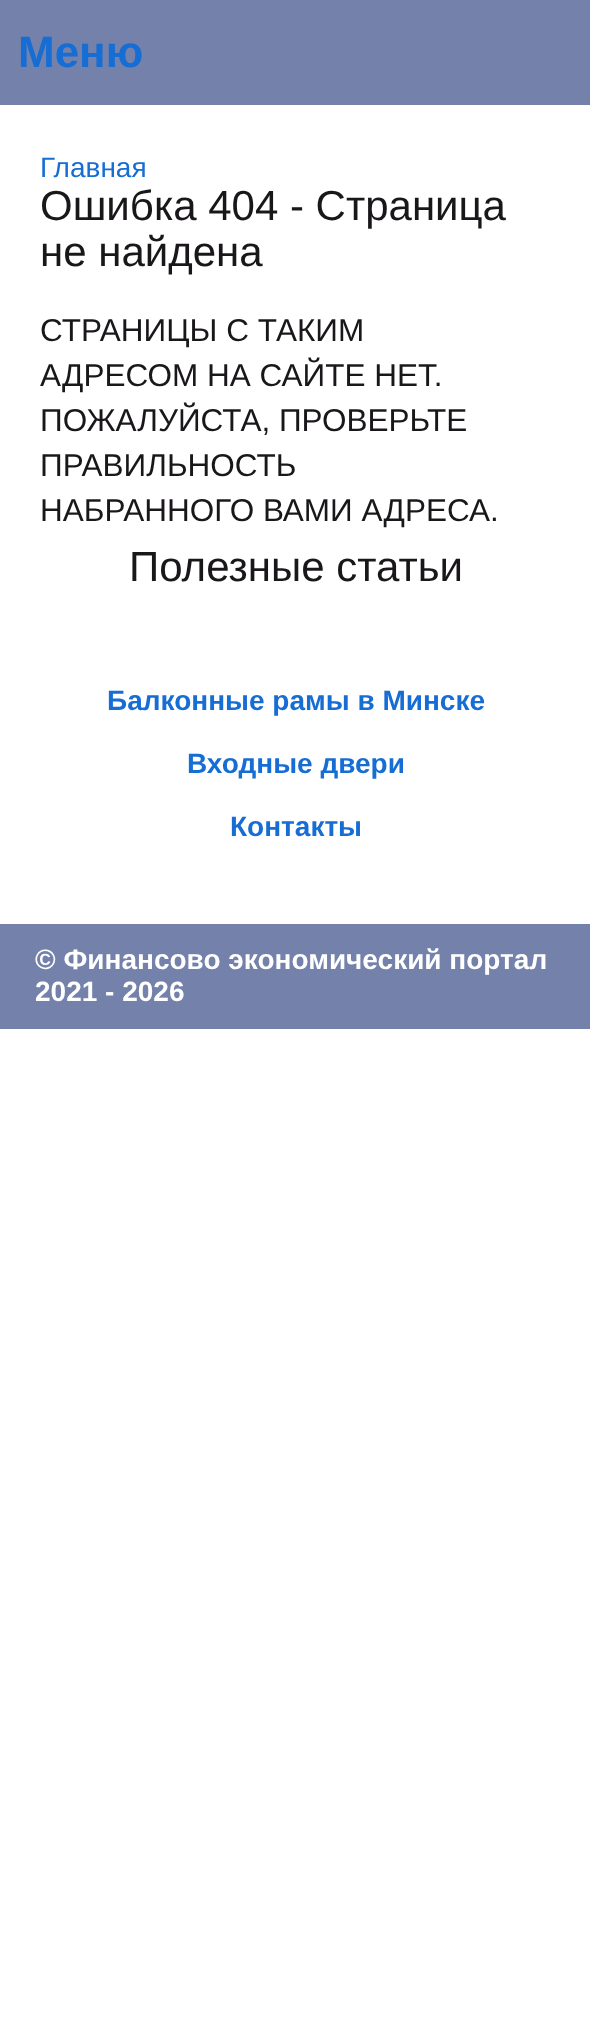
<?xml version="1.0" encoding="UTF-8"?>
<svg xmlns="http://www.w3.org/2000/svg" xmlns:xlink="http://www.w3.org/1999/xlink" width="590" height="2030">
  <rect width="100%" height="100%" fill="#ffffff" />
  <rect width="590" height="105" fill="#7381ab" />
  <rect y="924" width="590" height="105" fill="#7381ab" />
  <text x="18" y="67" style="font-family: Liberation Sans; font-size: 44px; font-weight: bold; fill: #166dd4">Меню</text>
  <text x="40" y="177" style="font-family: Liberation Sans; font-size: 28px; fill: #166dd4">Главная</text>
  <text x="40" y="220" style="font-family: Liberation Sans; font-size: 42px; fill: #1a171b">Ошибка 404 - Страница</text>
  <text x="40" y="266" style="font-family: Liberation Sans; font-size: 42px; fill: #1a171b">не найдена</text>
  <text x="40" y="341" style="font-family: Liberation Sans; font-size: 31.5px; fill: #1a171b">СТРАНИЦЫ С ТАКИМ</text>
  <text x="40" y="386" style="font-family: Liberation Sans; font-size: 31.5px; fill: #1a171b">АДРЕСОМ НА САЙТЕ НЕТ.</text>
  <text x="40" y="431" style="font-family: Liberation Sans; font-size: 31.5px; fill: #1a171b">ПОЖАЛУЙСТА, ПРОВЕРЬТЕ</text>
  <text x="40" y="476" style="font-family: Liberation Sans; font-size: 31.5px; fill: #1a171b">ПРАВИЛЬНОСТЬ</text>
  <text x="40" y="521" style="font-family: Liberation Sans; font-size: 31.5px; fill: #1a171b">НАБРАННОГО ВАМИ АДРЕСА.</text>
  <text x="129" y="581" style="font-family: Liberation Sans; font-size: 42px; fill: #1a171b">Полезные статьи</text>
  <text x="107" y="710" style="font-family: Liberation Sans; font-size: 28px; font-weight: bold; fill: #166dd4">Балконные рамы в Минске</text>
  <text x="187" y="773" style="font-family: Liberation Sans; font-size: 28px; font-weight: bold; fill: #166dd4">Входные двери</text>
  <text x="230" y="836" style="font-family: Liberation Sans; font-size: 28px; font-weight: bold; fill: #166dd4">Контакты</text>
  <text x="35" y="969" style="font-family: Liberation Sans; font-size: 28px; font-weight: bold; fill: #ffffff">© Финансово экономический портал</text>
  <text x="35" y="1001" style="font-family: Liberation Sans; font-size: 28px; font-weight: bold; fill: #ffffff">2021 - 2026</text>
</svg>
